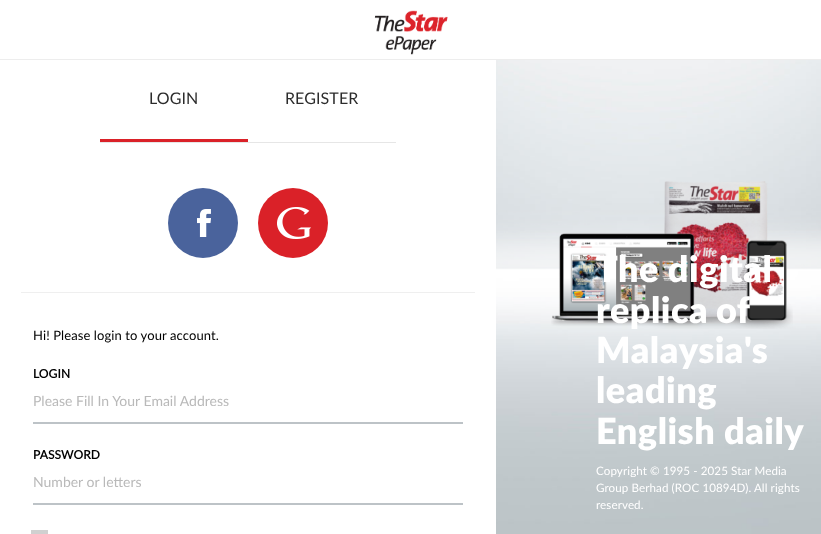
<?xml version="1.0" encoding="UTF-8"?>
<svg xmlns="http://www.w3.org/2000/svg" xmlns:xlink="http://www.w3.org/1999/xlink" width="821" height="534">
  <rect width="100%" height="100%" fill="#ffffff" />
  <rect y="59" width="821" height="1" fill="#ededed" />
  <image x="374" y="10" width="74" height="45" xlink:href="image1.png" />
  <rect x="100" y="139" width="148" height="3" fill="#da2128" />
  <rect x="100" y="142" width="296" height="1" fill="#e6e6e6" />
  <circle cx="203" cy="223" r="35" fill="#4a639c" />
  <image x="197" y="209" width="14" height="28" xlink:href="image2.png" />
  <circle cx="293" cy="223" r="35" fill="#da2128" />
  <image x="277" y="207" width="34" height="32" xlink:href="image3.png" />
  <rect x="21" y="292" width="454" height="1" fill="#efefef" />
  <rect x="33" y="422" width="430" height="2" fill="#bdc3c7" />
  <rect x="33" y="503" width="430" height="2" fill="#bdc3c7" />
  <path d="M 35 534 h 9 v 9 h -9 z" fill="none" stroke="#d0d0d0" stroke-width="8" />
  <image x="496" y="60" width="325" height="474" xlink:href="image4.png" />
  <image x="551" y="181" width="242" height="148" xlink:href="image5.png" />
  <text x="149" y="104" style="font-family: Lato; font-size: 16px; letter-spacing: 0.1px; fill: #2c2c2c">LOGIN</text>
  <text x="285" y="104" style="font-family: Lato; font-size: 16px; letter-spacing: 0.1px; fill: #2c2c2c">REGISTER</text>
  <text x="33" y="340" style="font-family: Lato; font-size: 13px; letter-spacing: 0.1px; fill: #000000">Hi! Please login to your account.</text>
  <text x="33" y="378" style="font-family: Lato; font-size: 12px; font-weight: bold; letter-spacing: 0.1px; fill: #000000">LOGIN</text>
  <text x="33" y="406" style="font-family: Lato; font-size: 14px; fill: #b9b9b9">Please Fill In Your Email Address</text>
  <text x="33" y="459" style="font-family: Lato; font-size: 12px; font-weight: bold; letter-spacing: 0.1px; fill: #000000">PASSWORD</text>
  <text x="33" y="487" style="font-family: Lato; font-size: 14px; fill: #b9b9b9">Number or letters</text>
  <text x="596" y="282" style="font-family: Lato; font-size: 36px; font-weight: 900; letter-spacing: 0.5px; fill: #ffffff">The digital</text>
  <text x="596" y="323" word-spacing="-1" style="font-family: Lato; font-size: 36px; font-weight: 900; letter-spacing: 0.5px; fill: #ffffff">replica of</text>
  <text x="596" y="363" style="font-family: Lato; font-size: 36px; font-weight: 900; letter-spacing: 0.5px; fill: #ffffff">Malaysia's</text>
  <text x="596" y="403" style="font-family: Lato; font-size: 36px; font-weight: 900; letter-spacing: 0.5px; fill: #ffffff">leading</text>
  <text x="596" y="444" style="font-family: Lato; font-size: 36px; font-weight: 900; letter-spacing: 0.5px; fill: #ffffff">English daily</text>
  <text x="596" y="475" style="font-family: Lato; font-size: 11.6px; letter-spacing: 0.1px; fill: #ffffff">Copyright © 1995 - 2025 Star Media</text>
  <text x="596" y="492" style="font-family: Lato; font-size: 11.6px; letter-spacing: 0.1px; fill: #ffffff">Group Berhad (ROC 10894D). All rights</text>
  <text x="596" y="509" style="font-family: Lato; font-size: 11.6px; letter-spacing: 0.1px; fill: #ffffff">reserved.</text>
</svg>
